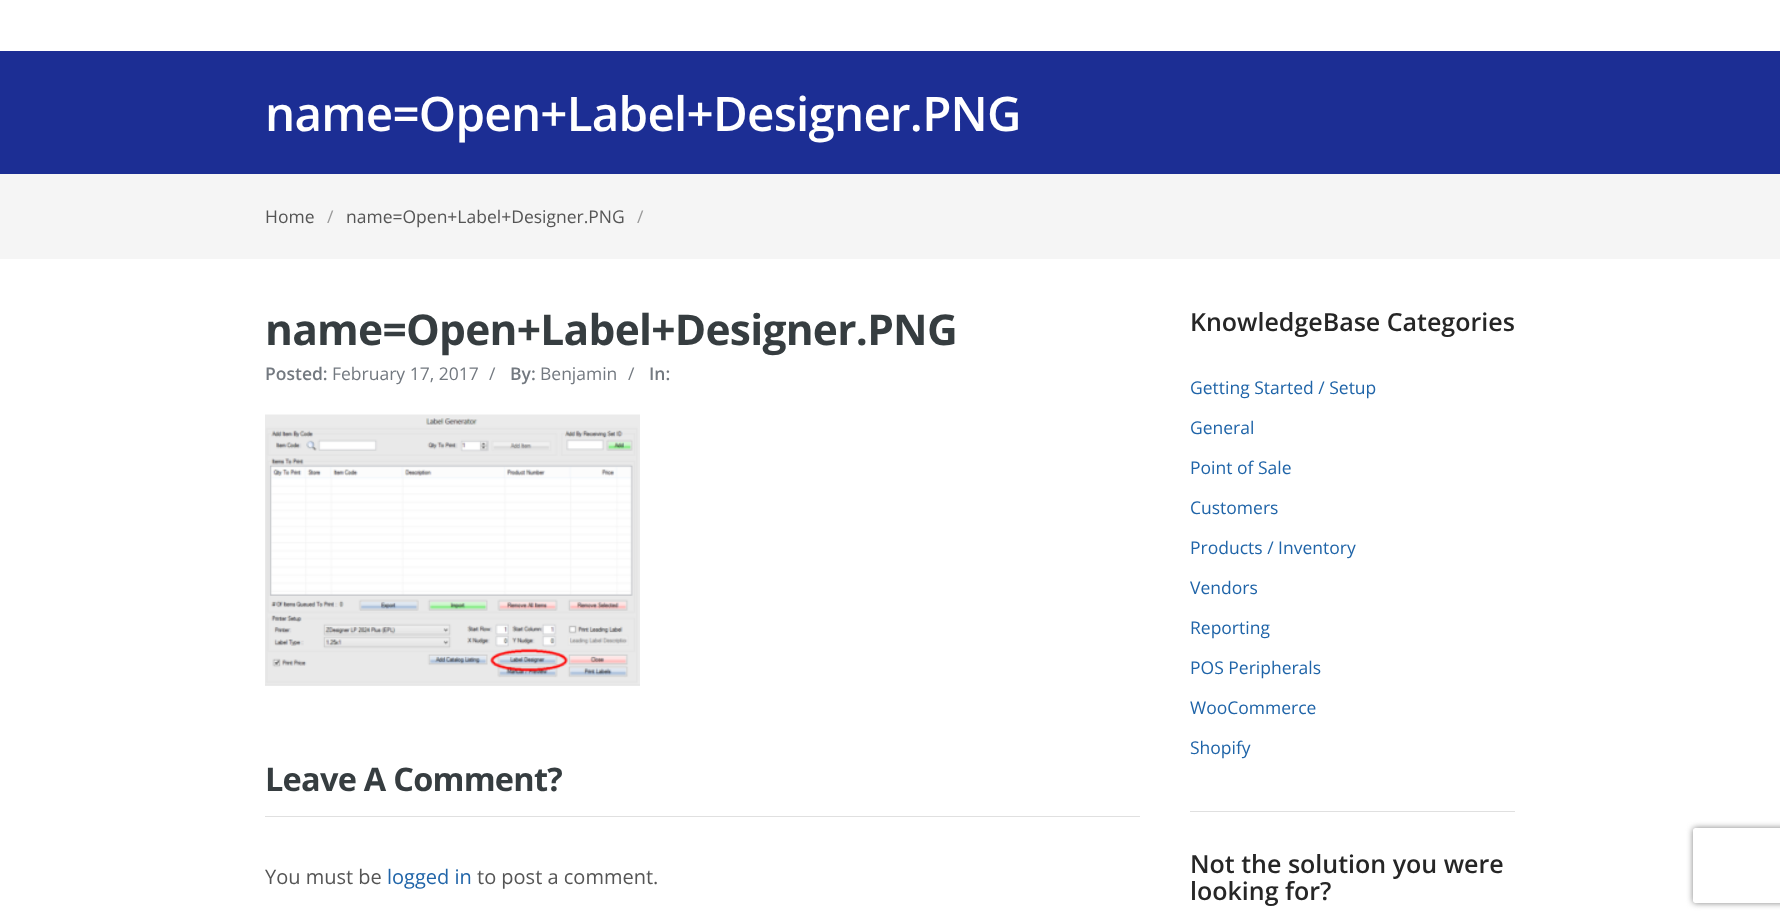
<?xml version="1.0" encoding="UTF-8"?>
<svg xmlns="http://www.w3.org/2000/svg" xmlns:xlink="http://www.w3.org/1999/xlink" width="1780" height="920">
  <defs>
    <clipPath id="clip1"><path d="M 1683 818 h 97 v 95 h -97 z m 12.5 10 h 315 c 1.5 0 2.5 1 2.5 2.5 v 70 c 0 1.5 -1 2.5 -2.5 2.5 h -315 c -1.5 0 -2.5 -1 -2.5 -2.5 v -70 c 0 -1.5 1 -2.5 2.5 -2.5 z" clip-rule="evenodd" /></clipPath>
  </defs>
  <rect width="100%" height="100%" fill="#ffffff" />
  <rect y="51" width="1780" height="123" fill="#1c2e94" />
  <rect y="174" width="1780" height="85" fill="#f5f5f5" />
  <image x="265" y="414" width="375" height="272" xlink:href="image1.png" />
  <rect x="265" y="816" width="875" height="1" fill="#e0e0e0" />
  <rect x="1190" y="811" width="325" height="1" fill="#e0e0e0" />
  <g clip-path="url(#clip1)">
    <rect x="1693" y="828" width="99" height="75" rx="2.5" fill="#808080" filter="blur(3px)" />
  </g>
  <text x="265" y="131" style="font-family: Open Sans; font-size: 47.5px; font-weight: 600; letter-spacing: -0.75px; fill: #ffffff">name=Open+Label+Designer.PNG</text>
  <text x="265" y="223" style="font-family: Open Sans; font-size: 17.5px; fill: #555555">Home</text>
  <text x="327" y="223" style="font-family: Open Sans; font-size: 17.5px; fill: #999999">/</text>
  <text x="346" y="223" style="font-family: Open Sans; font-size: 17.5px; fill: #555555">name=Open+Label+Designer.PNG</text>
  <text x="637" y="223" style="font-family: Open Sans; font-size: 17.5px; fill: #999999">/</text>
  <text x="265" y="345" style="font-family: Open Sans; font-size: 42.5px; font-weight: bold; letter-spacing: -0.75px; fill: #363d40">name=Open+Label+Designer.PNG</text>
  <text x="265" y="380" style="font-family: Open Sans; font-size: 17.5px; font-weight: 600; fill: #737980">Posted:</text>
  <text x="332" y="380" style="font-family: Open Sans; font-size: 17.5px; fill: #737980">February 17, 2017</text>
  <text x="489" y="380" style="font-family: Open Sans; font-size: 17.5px; fill: #737980">/</text>
  <text x="510" y="380" style="font-family: Open Sans; font-size: 17.5px; font-weight: 600; fill: #737980">By:</text>
  <text x="540" y="380" style="font-family: Open Sans; font-size: 17.5px; fill: #737980">Benjamin</text>
  <text x="628" y="380" style="font-family: Open Sans; font-size: 17.5px; fill: #737980">/</text>
  <text x="649" y="380" style="font-family: Open Sans; font-size: 17.5px; font-weight: 600; fill: #737980">In:</text>
  <text x="265" y="791" style="font-family: Open Sans; font-size: 32.5px; font-weight: bold; letter-spacing: -0.75px; fill: #363d40">Leave A Comment?</text>
  <text x="265" y="884" style="font-family: Open Sans; font-size: 20px; fill: #555555">You must be</text>
  <text x="387" y="884" style="font-family: Open Sans; font-size: 20px; fill: #1f64a8">logged in</text>
  <text x="477" y="884" style="font-family: Open Sans; font-size: 20px; fill: #555555">to post a comment.</text>
  <text x="1190" y="331" style="font-family: Open Sans; font-size: 25px; font-weight: 600; fill: #262626">KnowledgeBase Categories</text>
  <text x="1190" y="394" style="font-family: Open Sans; font-size: 17.5px; fill: #1f64a8">Getting Started / Setup</text>
  <text x="1190" y="434" style="font-family: Open Sans; font-size: 17.5px; fill: #1f64a8">General</text>
  <text x="1190" y="474" style="font-family: Open Sans; font-size: 17.5px; fill: #1f64a8">Point of Sale</text>
  <text x="1190" y="514" style="font-family: Open Sans; font-size: 17.5px; fill: #1f64a8">Customers</text>
  <text x="1190" y="554" style="font-family: Open Sans; font-size: 17.5px; fill: #1f64a8">Products / Inventory</text>
  <text x="1190" y="594" style="font-family: Open Sans; font-size: 17.5px; fill: #1f64a8">Vendors</text>
  <text x="1190" y="634" style="font-family: Open Sans; font-size: 17.5px; fill: #1f64a8">Reporting</text>
  <text x="1190" y="674" style="font-family: Open Sans; font-size: 17.5px; fill: #1f64a8">POS Peripherals</text>
  <text x="1190" y="714" style="font-family: Open Sans; font-size: 17.5px; fill: #1f64a8">WooCommerce</text>
  <text x="1190" y="754" style="font-family: Open Sans; font-size: 17.5px; fill: #1f64a8">Shopify</text>
  <text x="1190" y="873" style="font-family: Open Sans; font-size: 25px; font-weight: 600; fill: #262626">Not the solution you were</text>
  <text x="1190" y="900" style="font-family: Open Sans; font-size: 25px; font-weight: 600; fill: #262626">looking for?</text>
</svg>
